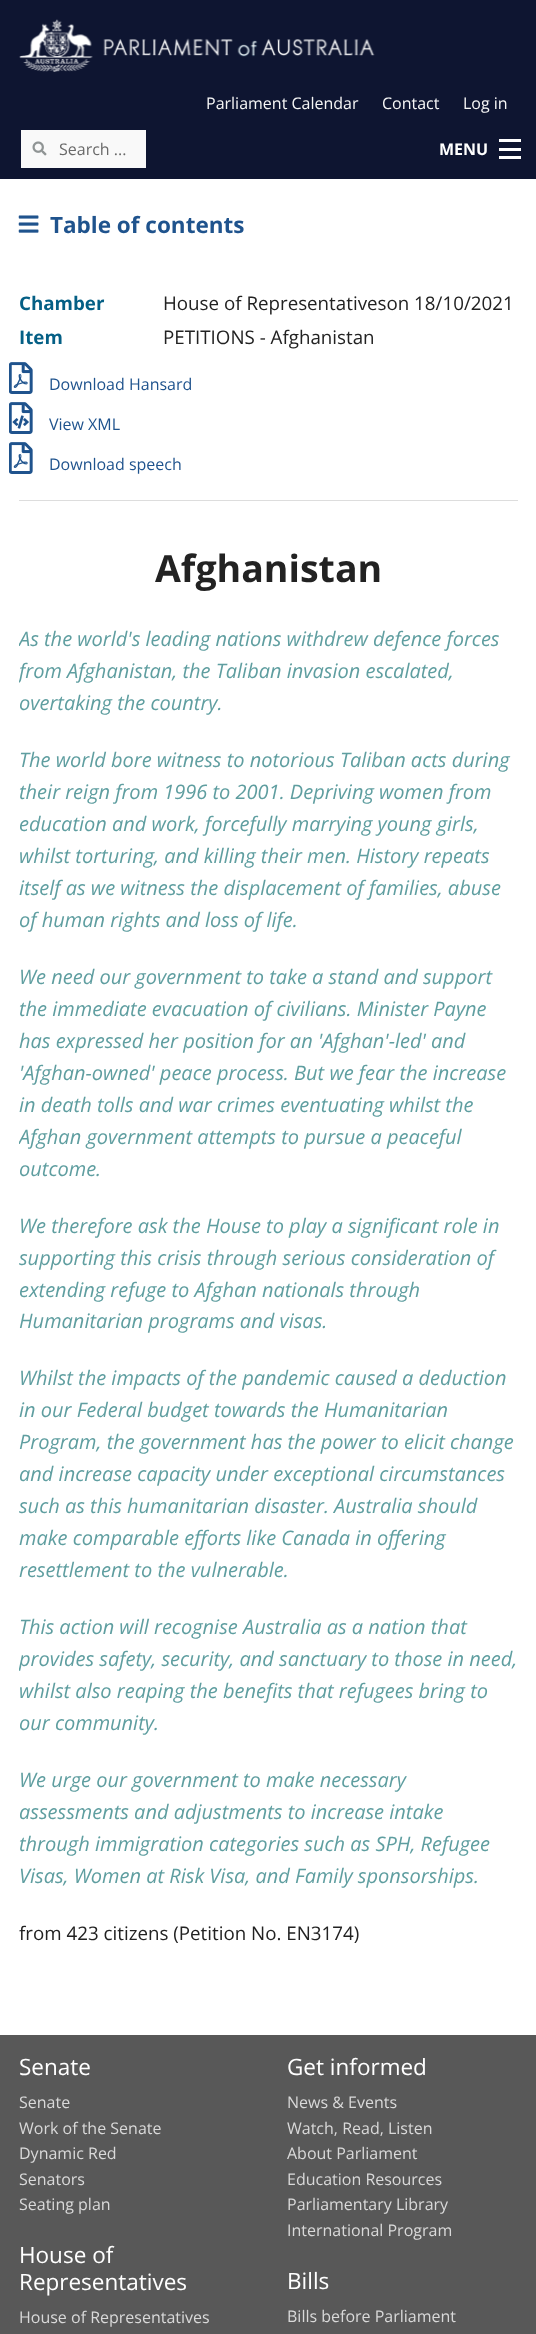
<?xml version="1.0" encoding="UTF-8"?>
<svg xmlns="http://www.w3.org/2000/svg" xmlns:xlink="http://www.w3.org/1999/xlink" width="536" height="2334">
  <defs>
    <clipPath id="clip1"><rect x="19" y="501" width="499" height="1509" /></clipPath>
  </defs>
  <rect width="100%" height="100%" fill="#ffffff" />
  <rect width="536" height="179" fill="#0e1531" />
  <image x="19" y="19" width="356" height="53" xlink:href="image1.png" />
  <rect x="21" y="130" width="125" height="38" fill="#f9f9f9" />
  <image x="32" y="141" width="15" height="15" xlink:href="image2.png" />
  <rect x="499" y="156" width="22" height="3" fill="#ffffff" />
  <rect x="499" y="148" width="22" height="3" fill="#ffffff" />
  <rect x="499" y="139" width="22" height="3" fill="#ffffff" />
  <image x="18" y="215" width="21" height="18" xlink:href="image3.png" />
  <image x="9" y="362" width="24" height="32" xlink:href="image4.png" />
  <image x="9" y="402" width="24" height="32" xlink:href="image5.png" />
  <image x="9" y="442" width="24" height="32" xlink:href="image4.png" />
  <rect x="19" y="500" width="499" height="1" fill="#dddddd" />
  <rect y="2035" width="536" height="299" fill="#585858" />
  <text x="206" y="109" style="font-family: Open Sans; font-size: 16px; fill: #f6f6f6">Parliament Calendar</text>
  <text x="382" y="109" style="font-family: Open Sans; font-size: 16px; fill: #f6f6f6">Contact</text>
  <text x="463" y="109" style="font-family: Open Sans; font-size: 16px; fill: #f6f6f6">Log in</text>
  <text x="59" y="155" style="font-family: Open Sans; font-size: 16px; fill: #696969">Search ...</text>
  <text x="439" y="155" style="font-family: Open Sans; font-size: 16px; font-weight: bold; fill: #ffffff">MENU</text>
  <text x="50" y="233" style="font-family: Open Sans; font-size: 22.5px; font-weight: bold; fill: #1f538d">Table of contents</text>
  <text x="19" y="310" style="font-family: Open Sans; font-size: 18.75px; font-weight: bold; fill: #045f85">Chamber</text>
  <text x="163" y="310" style="font-family: Open Sans; font-size: 18.75px; fill: #222222">House of Representativeson 18/10/2021</text>
  <text x="19" y="344" style="font-family: Open Sans; font-size: 18.75px; font-weight: bold; fill: #045f85">Item</text>
  <text x="163" y="344" style="font-family: Open Sans; font-size: 18.75px; fill: #222222">PETITIONS - Afghanistan</text>
  <text x="49" y="390" style="font-family: Open Sans; font-size: 16px; fill: #1f538d">Download Hansard</text>
  <text x="49" y="430" style="font-family: Open Sans; font-size: 16px; fill: #1f538d">View XML</text>
  <text x="49" y="470" style="font-family: Open Sans; font-size: 16px; fill: #1f538d">Download speech</text>
  <text x="155" y="582" style="font-family: Open Sans; font-size: 37.5px; font-weight: bold; fill: #222222">Afghanistan</text>
  <g clip-path="url(#clip1)">
    <text x="19" y="646" style="font-family: Open Sans; font-size: 20px; font-style: italic; fill: #5f9ea0">As the world's leading nations withdrew defence forces</text>
    <text x="19" y="678" style="font-family: Open Sans; font-size: 20px; font-style: italic; fill: #5f9ea0">from Afghanistan, the Taliban invasion escalated,</text>
  </g>
  <text x="19" y="710" style="font-family: Open Sans; font-size: 20px; font-style: italic; fill: #5f9ea0">overtaking the country.</text>
  <text x="19" y="767" style="font-family: Open Sans; font-size: 20px; font-style: italic; fill: #5f9ea0">The world bore witness to notorious Taliban acts during</text>
  <text x="19" y="799" style="font-family: Open Sans; font-size: 20px; font-style: italic; fill: #5f9ea0">their reign from 1996 to 2001. Depriving women from</text>
  <text x="19" y="831" style="font-family: Open Sans; font-size: 20px; font-style: italic; fill: #5f9ea0">education and work, forcefully marrying young girls,</text>
  <text x="19" y="863" style="font-family: Open Sans; font-size: 20px; font-style: italic; fill: #5f9ea0">whilst torturing, and killing their men. History repeats</text>
  <text x="19" y="895" style="font-family: Open Sans; font-size: 20px; font-style: italic; fill: #5f9ea0">itself as we witness the displacement of families, abuse</text>
  <text x="19" y="927" style="font-family: Open Sans; font-size: 20px; font-style: italic; fill: #5f9ea0">of human rights and loss of life.</text>
  <text x="19" y="984" style="font-family: Open Sans; font-size: 20px; font-style: italic; fill: #5f9ea0">We need our government to take a stand and support</text>
  <text x="19" y="1016" style="font-family: Open Sans; font-size: 20px; font-style: italic; fill: #5f9ea0">the immediate evacuation of civilians. Minister Payne</text>
  <text x="19" y="1048" style="font-family: Open Sans; font-size: 20px; font-style: italic; fill: #5f9ea0">has expressed her position for an 'Afghan'-led' and</text>
  <text x="19" y="1080" style="font-family: Open Sans; font-size: 20px; font-style: italic; fill: #5f9ea0">'Afghan-owned' peace process. But we fear the increase</text>
  <text x="19" y="1112" style="font-family: Open Sans; font-size: 20px; font-style: italic; fill: #5f9ea0">in death tolls and war crimes eventuating whilst the</text>
  <g clip-path="url(#clip1)">
    <text x="19" y="1144" style="font-family: Open Sans; font-size: 20px; font-style: italic; fill: #5f9ea0">Afghan government attempts to pursue a peaceful</text>
  </g>
  <text x="19" y="1176" style="font-family: Open Sans; font-size: 20px; font-style: italic; fill: #5f9ea0">outcome.</text>
  <text x="19" y="1233" style="font-family: Open Sans; font-size: 20px; font-style: italic; fill: #5f9ea0">We therefore ask the House to play a significant role in</text>
  <text x="19" y="1265" style="font-family: Open Sans; font-size: 20px; font-style: italic; fill: #5f9ea0">supporting this crisis through serious consideration of</text>
  <text x="19" y="1297" style="font-family: Open Sans; font-size: 20px; font-style: italic; fill: #5f9ea0">extending refuge to Afghan nationals through</text>
  <text x="19" y="1328" style="font-family: Open Sans; font-size: 20px; font-style: italic; fill: #5f9ea0">Humanitarian programs and visas.</text>
  <text x="19" y="1385" style="font-family: Open Sans; font-size: 20px; font-style: italic; fill: #5f9ea0">Whilst the impacts of the pandemic caused a deduction</text>
  <text x="19" y="1417" style="font-family: Open Sans; font-size: 20px; font-style: italic; fill: #5f9ea0">in our Federal budget towards the Humanitarian</text>
  <text x="19" y="1449" style="font-family: Open Sans; font-size: 20px; font-style: italic; fill: #5f9ea0">Program, the government has the power to elicit change</text>
  <text x="19" y="1481" style="font-family: Open Sans; font-size: 20px; font-style: italic; fill: #5f9ea0">and increase capacity under exceptional circumstances</text>
  <text x="19" y="1513" style="font-family: Open Sans; font-size: 20px; font-style: italic; fill: #5f9ea0">such as this humanitarian disaster. Australia should</text>
  <text x="19" y="1545" style="font-family: Open Sans; font-size: 20px; font-style: italic; fill: #5f9ea0">make comparable efforts like Canada in offering</text>
  <text x="19" y="1577" style="font-family: Open Sans; font-size: 20px; font-style: italic; fill: #5f9ea0">resettlement to the vulnerable.</text>
  <text x="19" y="1634" style="font-family: Open Sans; font-size: 20px; font-style: italic; fill: #5f9ea0">This action will recognise Australia as a nation that</text>
  <g clip-path="url(#clip1)">
    <text x="19" y="1666" style="font-family: Open Sans; font-size: 20px; font-style: italic; fill: #5f9ea0">provides safety, security, and sanctuary to those in need,</text>
  </g>
  <text x="19" y="1698" style="font-family: Open Sans; font-size: 20px; font-style: italic; fill: #5f9ea0">whilst also reaping the benefits that refugees bring to</text>
  <text x="19" y="1730" style="font-family: Open Sans; font-size: 20px; font-style: italic; fill: #5f9ea0">our community.</text>
  <text x="19" y="1787" style="font-family: Open Sans; font-size: 20px; font-style: italic; fill: #5f9ea0">We urge our government to make necessary</text>
  <text x="19" y="1819" style="font-family: Open Sans; font-size: 20px; font-style: italic; fill: #5f9ea0">assessments and adjustments to increase intake</text>
  <text x="19" y="1851" style="font-family: Open Sans; font-size: 20px; font-style: italic; fill: #5f9ea0">through immigration categories such as SPH, Refugee</text>
  <text x="19" y="1883" style="font-family: Open Sans; font-size: 20px; font-style: italic; fill: #5f9ea0">Visas, Women at Risk Visa, and Family sponsorships.</text>
  <text x="19" y="1940" style="font-family: Open Sans; font-size: 18.75px; fill: #222222">from 423 citizens (Petition No. EN3174)</text>
  <text x="19" y="2075" style="font-family: Open Sans; font-size: 22.5px; fill: #ffffff">Senate</text>
  <text x="19" y="2108" style="font-family: Open Sans; font-size: 16px; fill: #d9d9d9">Senate</text>
  <text x="19" y="2134" style="font-family: Open Sans; font-size: 16px; fill: #d9d9d9">Work of the Senate</text>
  <text x="19" y="2159" style="font-family: Open Sans; font-size: 16px; fill: #d9d9d9">Dynamic Red</text>
  <text x="19" y="2185" style="font-family: Open Sans; font-size: 16px; fill: #d9d9d9">Senators</text>
  <text x="19" y="2210" style="font-family: Open Sans; font-size: 16px; fill: #d9d9d9">Seating plan</text>
  <text x="19" y="2263" style="font-family: Open Sans; font-size: 22.5px; fill: #ffffff">House of</text>
  <text x="19" y="2290" style="font-family: Open Sans; font-size: 22.5px; fill: #ffffff">Representatives</text>
  <text x="19" y="2323" style="font-family: Open Sans; font-size: 16px; fill: #d9d9d9">House of Representatives</text>
  <text x="287" y="2075" style="font-family: Open Sans; font-size: 22.5px; fill: #ffffff">Get informed</text>
  <text x="287" y="2108" style="font-family: Open Sans; font-size: 16px; fill: #d9d9d9">News &amp; Events</text>
  <text x="287" y="2134" style="font-family: Open Sans; font-size: 16px; fill: #d9d9d9">Watch, Read, Listen</text>
  <text x="287" y="2159" style="font-family: Open Sans; font-size: 16px; fill: #d9d9d9">About Parliament</text>
  <text x="287" y="2185" style="font-family: Open Sans; font-size: 16px; fill: #d9d9d9">Education Resources</text>
  <text x="287" y="2210" style="font-family: Open Sans; font-size: 16px; fill: #d9d9d9">Parliamentary Library</text>
  <text x="287" y="2236" style="font-family: Open Sans; font-size: 16px; fill: #d9d9d9">International Program</text>
  <text x="287" y="2289" style="font-family: Open Sans; font-size: 22.5px; fill: #ffffff">Bills</text>
  <text x="287" y="2322" style="font-family: Open Sans; font-size: 16px; fill: #d9d9d9">Bills before Parliament</text>
</svg>
